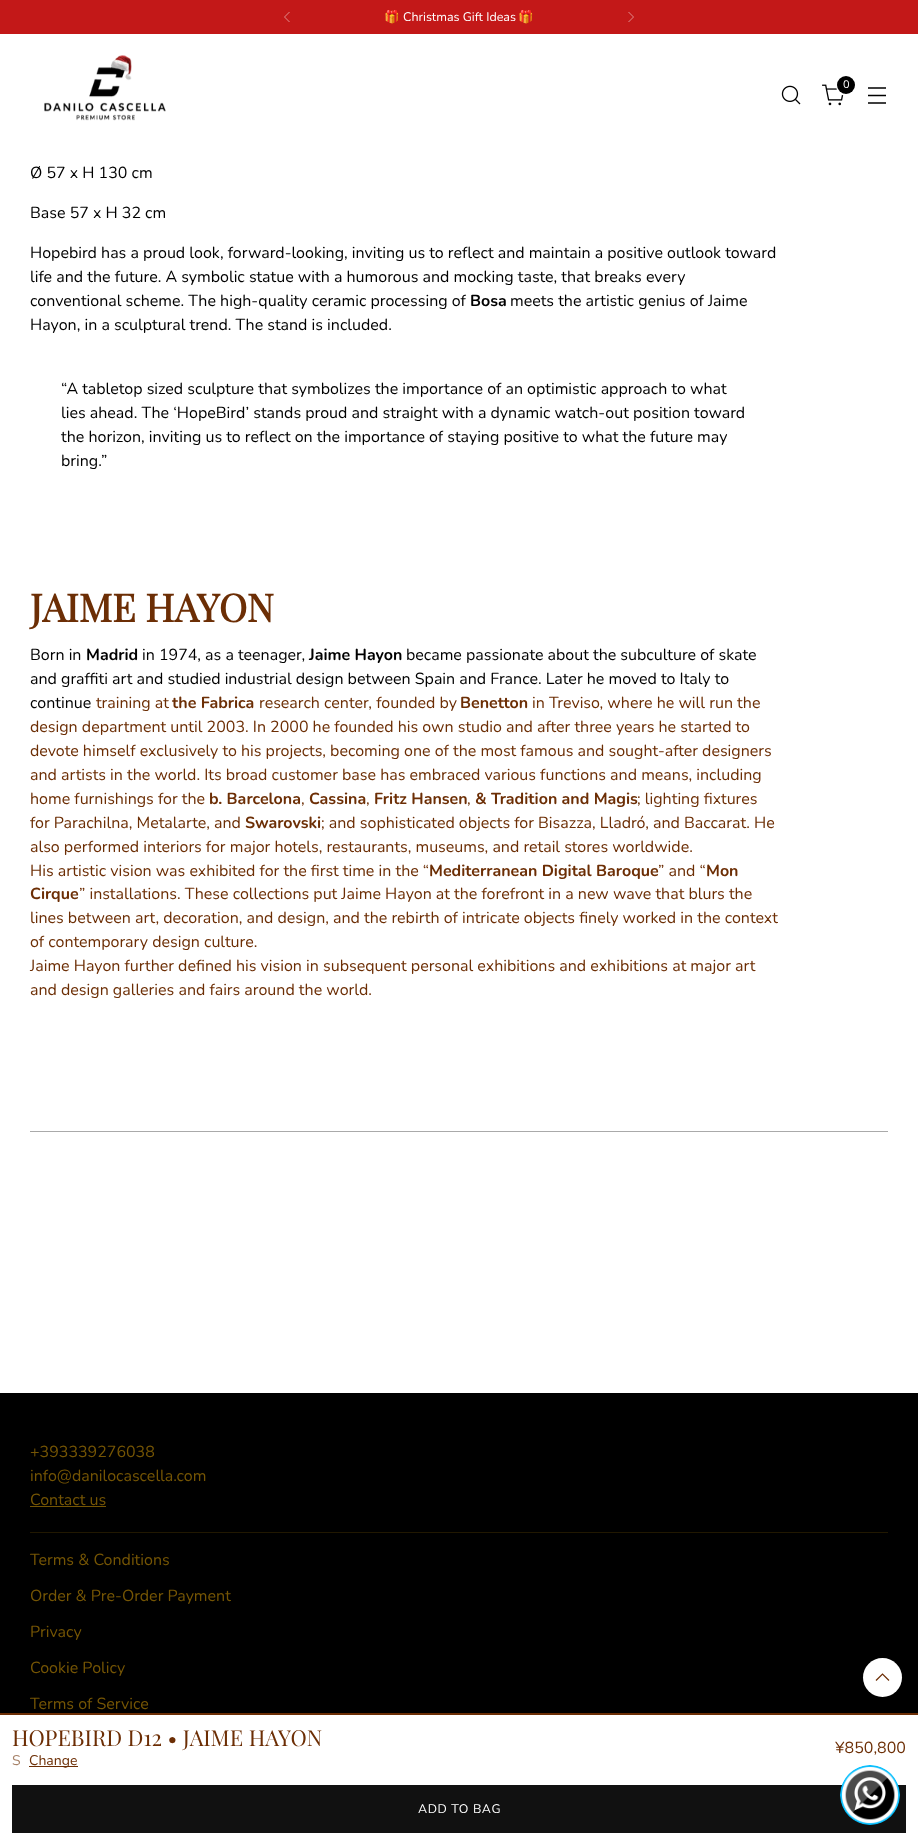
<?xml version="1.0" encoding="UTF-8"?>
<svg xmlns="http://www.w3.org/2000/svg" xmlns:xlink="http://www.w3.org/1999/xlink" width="918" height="1845">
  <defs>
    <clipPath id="clip1"><rect x="12" y="1785" width="894" height="48" /></clipPath>
  </defs>
  <rect width="100%" height="100%" fill="#ffffff" />
  <rect width="918" height="34" fill="#c31818" />
  <path d="M 289.5 12 l -5 5 l 5 5" fill="none" stroke="#e18c8c" />
  <path d="M 628.5 22 l 5 -5 l -5 -5" fill="none" stroke="#e18c8c" />
  <image x="44" y="55" width="122" height="66" xlink:href="image1.png" />
  <image x="781" y="85" width="20" height="20" xlink:href="image2.png" />
  <image x="822" y="84" width="22" height="22" xlink:href="image3.png" />
  <circle cx="846.5" cy="85.5" r="9.5" fill="none" stroke="#ffffff" stroke-width="2" />
  <circle cx="846" cy="85" r="9" fill="#000000" />
  <path d="M 868 95.5 h 18 m -18 -7.5 h 18 m -18 15 h 18" fill="none" stroke="#000000" stroke-width="1.3" />
  <rect x="30" y="1131" width="858" height="1" fill="#aaaaaa" />
  <rect y="1713" width="918" height="2" fill="#6c2e05" />
  <rect x="29" y="1766" width="49" height="1" fill="#6c2e05" />
  <g clip-path="url(#clip1)">
    <path d="M -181 1785 h 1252 l 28 48 h -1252 z" fill="#111111" />
  </g>
  <rect y="1393" width="918" height="320" fill="#000000" />
  <rect x="30" y="1532" width="858" height="1" fill="#211801" />
  <rect x="30" y="1506" width="76" height="1" fill="#755504" />
  <circle cx="882.5" cy="1677.5" r="19.5" fill="#ffffff" />
  <path d="M 889 1680.5 l -6.5 -6.5 l -6.5 6.5" fill="none" stroke="#6c2e05" stroke-width="1.2" />
  <image x="840" y="1765" width="60" height="60" xlink:href="image4.png" />
  <text x="384" y="21" style="font-family: Noto Color Emoji; font-size: 12.5px; fill: #ffffff">🎁</text>
  <text x="403" y="21" style="font-family: Nunito; font-size: 12.5px; fill: #ffffff">Christmas Gift Ideas</text>
  <text x="518" y="21" style="font-family: Noto Color Emoji; font-size: 12.5px; fill: #ffffff">🎁</text>
  <text x="843" y="88" style="font-family: Nunito; font-size: 11px; fill: #ffffff">0</text>
  <text x="30" y="178" style="font-family: Nunito; font-size: 16px; fill: #000000">Ø 57 x H 130 cm</text>
  <text x="30" y="218" style="font-family: Nunito; font-size: 16px; fill: #000000">Base 57 x H 32 cm</text>
  <text x="30" y="258" style="font-family: Nunito; font-size: 16px; fill: #000000">Hopebird has a proud look, forward-looking, inviting us to reflect and maintain a positive outlook toward</text>
  <text x="30" y="282" style="font-family: Nunito; font-size: 16px; fill: #000000">life and the future. A symbolic statue with a humorous and mocking taste, that breaks every</text>
  <text x="30" y="306" style="font-family: Nunito; font-size: 16px; fill: #000000">conventional scheme. The high-quality ceramic processing of</text>
  <text x="470" y="306" style="font-family: Nunito; font-size: 16px; font-weight: bold; fill: #000000">Bosa</text>
  <text x="510" y="306" style="font-family: Nunito; font-size: 16px; fill: #000000">meets the artistic genius of Jaime</text>
  <text x="30" y="330" style="font-family: Nunito; font-size: 16px; fill: #000000">Hayon, in a sculptural trend. The stand is included.</text>
  <text x="61" y="394" style="font-family: Nunito; font-size: 16px; fill: #000000">“A tabletop sized sculpture that symbolizes the importance of an optimistic approach to what</text>
  <text x="61" y="418" style="font-family: Nunito; font-size: 16px; fill: #000000">lies ahead. The ‘HopeBird’ stands proud and straight with a dynamic watch-out position toward</text>
  <text x="61" y="442" style="font-family: Nunito; font-size: 16px; fill: #000000">the horizon, inviting us to reflect on the importance of staying positive to what the future may</text>
  <text x="61" y="466" style="font-family: Nunito; font-size: 16px; fill: #000000">bring.”</text>
  <text x="30" y="622" style="font-family: Playfair Display; font-size: 38.5px; font-weight: bold; fill: #6c2e05">JAIME HAYON</text>
  <text x="30" y="660" style="font-family: Nunito; font-size: 16px; fill: #000000">Born in</text>
  <text x="86" y="660" style="font-family: Nunito; font-size: 16px; font-weight: bold; fill: #000000">Madrid</text>
  <text x="142" y="660" style="font-family: Nunito; font-size: 16px; fill: #000000">in 1974, as a teenager,</text>
  <text x="309" y="660" style="font-family: Nunito; font-size: 16px; font-weight: bold; fill: #000000">Jaime Hayon</text>
  <text x="406" y="660" style="font-family: Nunito; font-size: 16px; fill: #000000">became passionate about the subculture of skate</text>
  <text x="30" y="684" style="font-family: Nunito; font-size: 16px; fill: #000000">and graffiti art and studied industrial design between Spain and France. Later he moved to Italy to</text>
  <text x="30" y="708" style="font-family: Nunito; font-size: 16px; fill: #000000">continue</text>
  <text x="96" y="708" style="font-family: Nunito; font-size: 16px; fill: #6c2e05">training at</text>
  <text x="172" y="708" style="font-family: Nunito; font-size: 16px; font-weight: bold; fill: #6c2e05">the Fabrica</text>
  <text x="259" y="708" style="font-family: Nunito; font-size: 16px; fill: #6c2e05">research center, founded by</text>
  <text x="460" y="708" style="font-family: Nunito; font-size: 16px; font-weight: bold; fill: #6c2e05">Benetton</text>
  <text x="532" y="708" style="font-family: Nunito; font-size: 16px; fill: #6c2e05">in Treviso, where he will run the</text>
  <text x="30" y="732" style="font-family: Nunito; font-size: 16px; fill: #6c2e05">design department until 2003. In 2000 he founded his own studio and after three years he started to</text>
  <text x="30" y="756" style="font-family: Nunito; font-size: 16px; fill: #6c2e05">devote himself exclusively to his projects, becoming one of the most famous and sought-after designers</text>
  <text x="30" y="780" style="font-family: Nunito; font-size: 16px; fill: #6c2e05">and artists in the world. Its broad customer base has embraced various functions and means, including</text>
  <text x="30" y="804" style="font-family: Nunito; font-size: 16px; fill: #6c2e05">home furnishings for the</text>
  <text x="209" y="804" style="font-family: Nunito; font-size: 16px; font-weight: bold; fill: #6c2e05">b. Barcelona</text>
  <text x="301" y="804" style="font-family: Nunito; font-size: 16px; fill: #6c2e05">,</text>
  <text x="309" y="804" style="font-family: Nunito; font-size: 16px; font-weight: bold; fill: #6c2e05">Cassina</text>
  <text x="366" y="804" style="font-family: Nunito; font-size: 16px; fill: #6c2e05">,</text>
  <text x="374" y="804" style="font-family: Nunito; font-size: 16px; font-weight: bold; fill: #6c2e05">Fritz Hansen</text>
  <text x="467" y="804" style="font-family: Nunito; font-size: 16px; fill: #6c2e05">,</text>
  <text x="475" y="804" style="font-family: Nunito; font-size: 16px; font-weight: bold; fill: #6c2e05">&amp; Tradition and Magis</text>
  <text x="637" y="804" style="font-family: Nunito; font-size: 16px; fill: #6c2e05">; lighting fixtures</text>
  <text x="30" y="828" style="font-family: Nunito; font-size: 16px; fill: #6c2e05">for Parachilna, Metalarte, and</text>
  <text x="245" y="828" style="font-family: Nunito; font-size: 16px; font-weight: bold; fill: #6c2e05">Swarovski</text>
  <text x="321" y="828" style="font-family: Nunito; font-size: 16px; fill: #6c2e05">; and sophisticated objects for Bisazza, Lladró, and Baccarat. He</text>
  <text x="30" y="852" style="font-family: Nunito; font-size: 16px; fill: #6c2e05">also performed interiors for major hotels, restaurants, museums, and retail stores worldwide.</text>
  <text x="30" y="876" style="font-family: Nunito; font-size: 16px; fill: #6c2e05">His artistic vision was exhibited for the first time in the “</text>
  <text x="429" y="876" style="font-family: Nunito; font-size: 16px; font-weight: bold; fill: #6c2e05">Mediterranean Digital Baroque</text>
  <text x="658" y="876" style="font-family: Nunito; font-size: 16px; fill: #6c2e05">” and “</text>
  <text x="706" y="876" style="font-family: Nunito; font-size: 16px; font-weight: bold; fill: #6c2e05">Mon</text>
  <text x="30" y="899" style="font-family: Nunito; font-size: 16px; font-weight: bold; fill: #6c2e05">Cirque</text>
  <text x="79" y="899" style="font-family: Nunito; font-size: 16px; fill: #6c2e05">” installations. These collections put Jaime Hayon at the forefront in a new wave that blurs the</text>
  <text x="30" y="923" style="font-family: Nunito; font-size: 16px; fill: #6c2e05">lines between art, decoration, and design, and the rebirth of intricate objects finely worked in the context</text>
  <text x="30" y="947" style="font-family: Nunito; font-size: 16px; fill: #6c2e05">of contemporary design culture.</text>
  <text x="30" y="971" style="font-family: Nunito; font-size: 16px; fill: #6c2e05">Jaime Hayon further defined his vision in subsequent personal exhibitions and exhibitions at major art</text>
  <text x="30" y="995" style="font-family: Nunito; font-size: 16px; fill: #6c2e05">and design galleries and fairs around the world.</text>
  <text x="12" y="1746" style="font-family: Playfair Display; font-size: 22px; fill: #6c2e05">HOPEBIRD D12 • JAIME HAYON</text>
  <text x="12" y="1765" style="font-family: Nunito; font-size: 14px; fill: #a78269">S</text>
  <text x="29" y="1765" style="font-family: Nunito; font-size: 14px; fill: #6c2e05">Change</text>
  <text x="835" y="1753" style="font-family: Nunito; font-size: 16px; fill: #6c2e05">¥850,800</text>
  <text x="418" y="1813" style="font-family: Nunito; font-size: 12.5px; letter-spacing: 0.6px; fill: #ffffff">ADD TO BAG</text>
  <text x="30" y="1457" style="font-family: Nunito; font-size: 16px; fill: #755504">+393339276038</text>
  <text x="30" y="1481" style="font-family: Nunito; font-size: 16px; fill: #755504">info@danilocascella.com</text>
  <text x="30" y="1505" style="font-family: Nunito; font-size: 16px; fill: #755504">Contact us</text>
  <text x="30" y="1565" style="font-family: Nunito; font-size: 16px; fill: #755504">Terms &amp; Conditions</text>
  <text x="30" y="1601" style="font-family: Nunito; font-size: 16px; fill: #755504">Order &amp; Pre-Order Payment</text>
  <text x="30" y="1637" style="font-family: Nunito; font-size: 16px; fill: #755504">Privacy</text>
  <text x="30" y="1673" style="font-family: Nunito; font-size: 16px; fill: #755504">Cookie Policy</text>
  <text x="30" y="1709" style="font-family: Nunito; font-size: 16px; fill: #755504">Terms of Service</text>
</svg>
